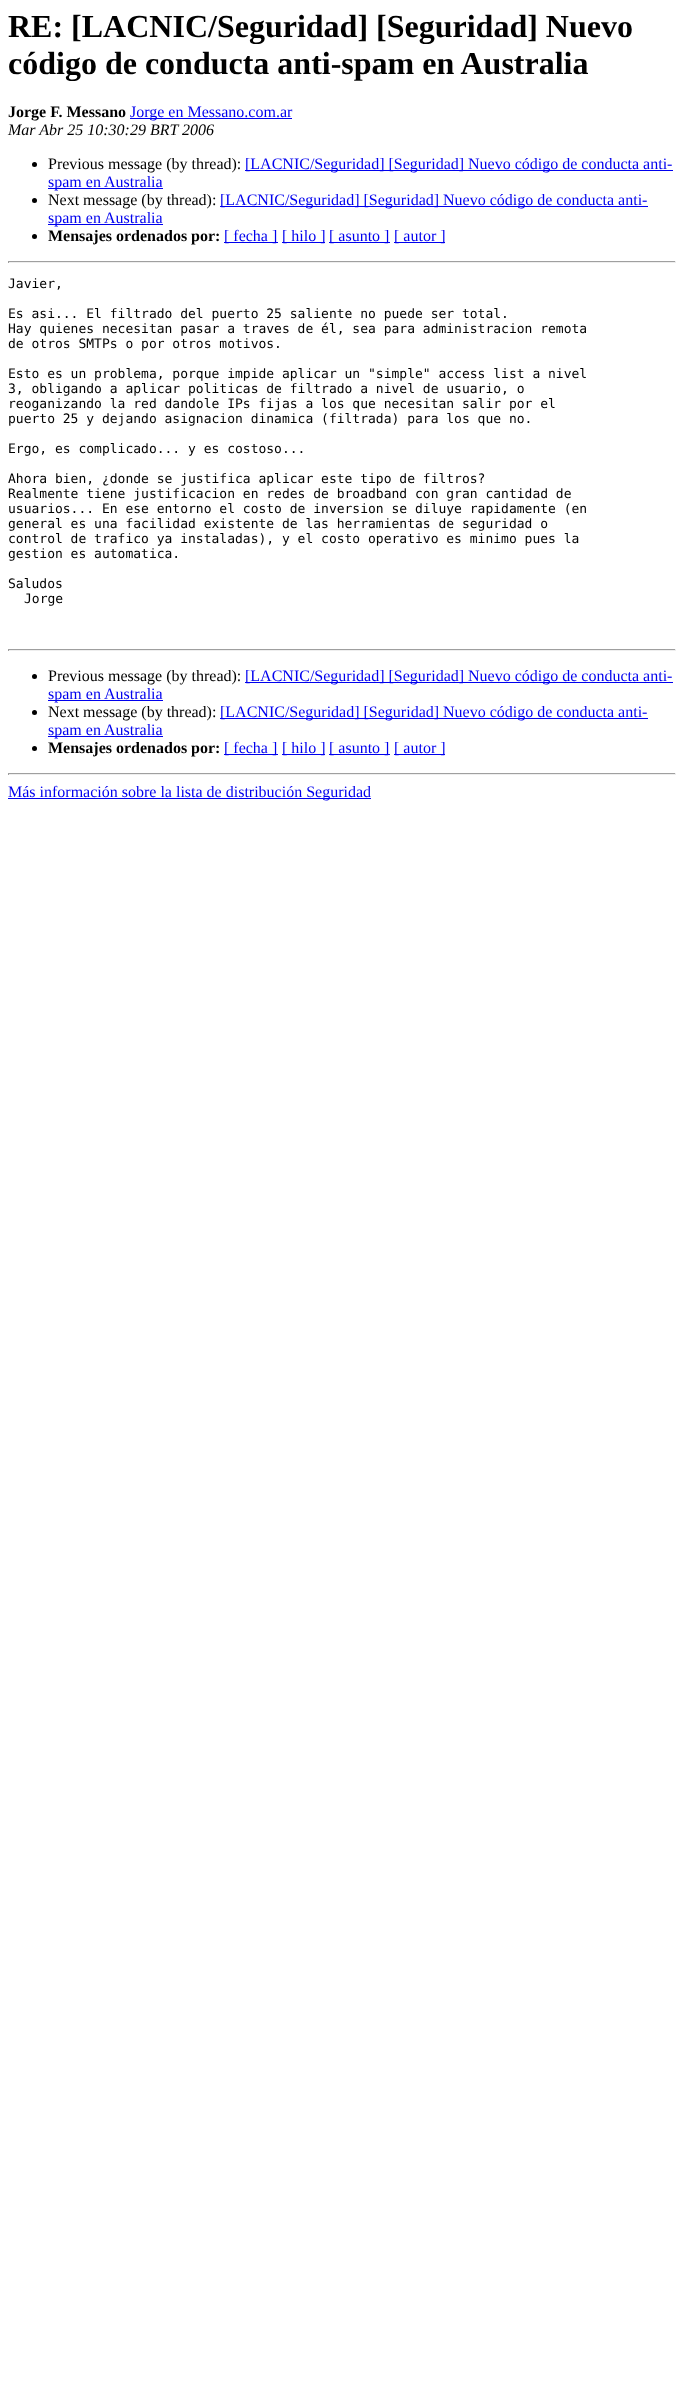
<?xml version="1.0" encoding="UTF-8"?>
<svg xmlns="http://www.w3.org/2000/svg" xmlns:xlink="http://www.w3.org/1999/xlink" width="684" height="2392">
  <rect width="100%" height="100%" fill="#ffffff" />
  <rect x="130" y="118" width="162" height="1" fill="#0000ee" />
  <circle cx="34.5" cy="164.5" r="2.5" fill="#000000" />
  <rect x="245" y="170" width="428" height="1" fill="#0000ee" />
  <rect x="48" y="188" width="115" height="1" fill="#0000ee" />
  <circle cx="34.5" cy="200.5" r="2.5" fill="#000000" />
  <rect x="220" y="206" width="428" height="1" fill="#0000ee" />
  <rect x="48" y="224" width="115" height="1" fill="#0000ee" />
  <circle cx="34.5" cy="236.5" r="2.5" fill="#000000" />
  <rect x="224" y="242" width="54" height="1" fill="#0000ee" />
  <rect x="282" y="242" width="43" height="1" fill="#0000ee" />
  <rect x="329" y="242" width="61" height="1" fill="#0000ee" />
  <rect x="394" y="242" width="51" height="1" fill="#0000ee" />
  <rect x="8" y="261" width="668" height="1" fill="#9f9f9f" />
  <rect x="675" y="261" width="1" height="2" fill="#eeeeee" />
  <rect x="8" y="262" width="668" height="1" fill="#eeeeee" />
  <rect x="8" y="261" width="1" height="2" fill="#9f9f9f" />
  <rect x="8" y="649" width="668" height="1" fill="#9f9f9f" />
  <rect x="675" y="649" width="1" height="2" fill="#eeeeee" />
  <rect x="8" y="650" width="668" height="1" fill="#eeeeee" />
  <rect x="8" y="649" width="1" height="2" fill="#9f9f9f" />
  <circle cx="34.5" cy="676.5" r="2.5" fill="#000000" />
  <rect x="245" y="682" width="428" height="1" fill="#0000ee" />
  <rect x="48" y="700" width="115" height="1" fill="#0000ee" />
  <circle cx="34.5" cy="712.5" r="2.5" fill="#000000" />
  <rect x="220" y="718" width="428" height="1" fill="#0000ee" />
  <rect x="48" y="736" width="115" height="1" fill="#0000ee" />
  <circle cx="34.5" cy="748.5" r="2.5" fill="#000000" />
  <rect x="224" y="754" width="54" height="1" fill="#0000ee" />
  <rect x="282" y="754" width="43" height="1" fill="#0000ee" />
  <rect x="329" y="754" width="61" height="1" fill="#0000ee" />
  <rect x="394" y="754" width="51" height="1" fill="#0000ee" />
  <rect x="8" y="773" width="668" height="1" fill="#9f9f9f" />
  <rect x="675" y="773" width="1" height="2" fill="#eeeeee" />
  <rect x="8" y="774" width="668" height="1" fill="#eeeeee" />
  <rect x="8" y="773" width="1" height="2" fill="#9f9f9f" />
  <rect x="8" y="798" width="363" height="1" fill="#0000ee" />
  <text x="8" y="37" style="font-family: Liberation Serif; font-size: 32px; font-weight: bold; fill: #000000">RE: [LACNIC/Seguridad] [Seguridad] Nuevo</text>
  <text x="8" y="74" style="font-family: Liberation Serif; font-size: 32px; font-weight: bold; fill: #000000">código de conducta anti-spam en Australia</text>
  <text x="8" y="117" style="font-family: Liberation Serif; font-size: 16px; font-weight: bold; fill: #000000">Jorge F. Messano</text>
  <text x="130" y="117" style="font-family: Liberation Serif; font-size: 16px; fill: #0000ee">Jorge en Messano.com.ar</text>
  <text x="8" y="135" style="font-family: Liberation Serif; font-size: 16px; font-style: italic; fill: #000000">Mar Abr 25 10:30:29 BRT 2006</text>
  <text x="48" y="169" style="font-family: Liberation Serif; font-size: 16px; fill: #000000">Previous message (by thread):</text>
  <text x="245" y="169" style="font-family: Liberation Serif; font-size: 16px; fill: #0000ee">[LACNIC/Seguridad] [Seguridad] Nuevo código de conducta anti-</text>
  <text x="48" y="187" style="font-family: Liberation Serif; font-size: 16px; fill: #0000ee">spam en Australia</text>
  <text x="48" y="205" style="font-family: Liberation Serif; font-size: 16px; fill: #000000">Next message (by thread):</text>
  <text x="220" y="205" style="font-family: Liberation Serif; font-size: 16px; fill: #0000ee">[LACNIC/Seguridad] [Seguridad] Nuevo código de conducta anti-</text>
  <text x="48" y="223" style="font-family: Liberation Serif; font-size: 16px; fill: #0000ee">spam en Australia</text>
  <text x="48" y="241" style="font-family: Liberation Serif; font-size: 16px; font-weight: bold; fill: #000000">Mensajes ordenados por:</text>
  <text x="224" y="241" style="font-family: Liberation Serif; font-size: 16px; fill: #0000ee">[ fecha ]</text>
  <text x="282" y="241" style="font-family: Liberation Serif; font-size: 16px; fill: #0000ee">[ hilo ]</text>
  <text x="329" y="241" style="font-family: Liberation Serif; font-size: 16px; fill: #0000ee">[ asunto ]</text>
  <text x="394" y="241" style="font-family: Liberation Serif; font-size: 16px; fill: #0000ee">[ autor ]</text>
  <text x="8" y="288" style="font-family: DejaVu Sans Mono; font-size: 13px; fill: #000000">Javier,</text>
  <text x="8" y="318" style="font-family: DejaVu Sans Mono; font-size: 13px; fill: #000000">Es asi... El filtrado del puerto 25 saliente no puede ser total.</text>
  <text x="8" y="333" style="font-family: DejaVu Sans Mono; font-size: 13px; fill: #000000">Hay quienes necesitan pasar a traves de él, sea para administracion remota</text>
  <text x="8" y="348" style="font-family: DejaVu Sans Mono; font-size: 13px; fill: #000000">de otros SMTPs o por otros motivos.</text>
  <text x="8" y="378" style="font-family: DejaVu Sans Mono; font-size: 13px; fill: #000000">Esto es un problema, porque impide aplicar un "simple" access list a nivel</text>
  <text x="8" y="393" style="font-family: DejaVu Sans Mono; font-size: 13px; fill: #000000">3, obligando a aplicar politicas de filtrado a nivel de usuario, o</text>
  <text x="8" y="408" style="font-family: DejaVu Sans Mono; font-size: 13px; fill: #000000">reoganizando la red dandole IPs fijas a los que necesitan salir por el</text>
  <text x="8" y="423" style="font-family: DejaVu Sans Mono; font-size: 13px; fill: #000000">puerto 25 y dejando asignacion dinamica (filtrada) para los que no.</text>
  <text x="8" y="453" style="font-family: DejaVu Sans Mono; font-size: 13px; fill: #000000">Ergo, es complicado... y es costoso...</text>
  <text x="8" y="483" style="font-family: DejaVu Sans Mono; font-size: 13px; fill: #000000">Ahora bien, ¿donde se justifica aplicar este tipo de filtros?</text>
  <text x="8" y="498" style="font-family: DejaVu Sans Mono; font-size: 13px; fill: #000000">Realmente tiene justificacion en redes de broadband con gran cantidad de</text>
  <text x="8" y="513" style="font-family: DejaVu Sans Mono; font-size: 13px; fill: #000000">usuarios... En ese entorno el costo de inversion se diluye rapidamente (en</text>
  <text x="8" y="528" style="font-family: DejaVu Sans Mono; font-size: 13px; fill: #000000">general es una facilidad existente de las herramientas de seguridad o</text>
  <text x="8" y="543" style="font-family: DejaVu Sans Mono; font-size: 13px; fill: #000000">control de trafico ya instaladas), y el costo operativo es minimo pues la</text>
  <text x="8" y="558" style="font-family: DejaVu Sans Mono; font-size: 13px; fill: #000000">gestion es automatica.</text>
  <text x="8" y="588" style="font-family: DejaVu Sans Mono; font-size: 13px; fill: #000000">Saludos</text>
  <text x="24" y="603" style="font-family: DejaVu Sans Mono; font-size: 13px; fill: #000000">Jorge</text>
  <text x="48" y="681" style="font-family: Liberation Serif; font-size: 16px; fill: #000000">Previous message (by thread):</text>
  <text x="245" y="681" style="font-family: Liberation Serif; font-size: 16px; fill: #0000ee">[LACNIC/Seguridad] [Seguridad] Nuevo código de conducta anti-</text>
  <text x="48" y="699" style="font-family: Liberation Serif; font-size: 16px; fill: #0000ee">spam en Australia</text>
  <text x="48" y="717" style="font-family: Liberation Serif; font-size: 16px; fill: #000000">Next message (by thread):</text>
  <text x="220" y="717" style="font-family: Liberation Serif; font-size: 16px; fill: #0000ee">[LACNIC/Seguridad] [Seguridad] Nuevo código de conducta anti-</text>
  <text x="48" y="735" style="font-family: Liberation Serif; font-size: 16px; fill: #0000ee">spam en Australia</text>
  <text x="48" y="753" style="font-family: Liberation Serif; font-size: 16px; font-weight: bold; fill: #000000">Mensajes ordenados por:</text>
  <text x="224" y="753" style="font-family: Liberation Serif; font-size: 16px; fill: #0000ee">[ fecha ]</text>
  <text x="282" y="753" style="font-family: Liberation Serif; font-size: 16px; fill: #0000ee">[ hilo ]</text>
  <text x="329" y="753" style="font-family: Liberation Serif; font-size: 16px; fill: #0000ee">[ asunto ]</text>
  <text x="394" y="753" style="font-family: Liberation Serif; font-size: 16px; fill: #0000ee">[ autor ]</text>
  <text x="8" y="797" style="font-family: Liberation Serif; font-size: 16px; fill: #0000ee">Más información sobre la lista de distribución Seguridad</text>
</svg>
